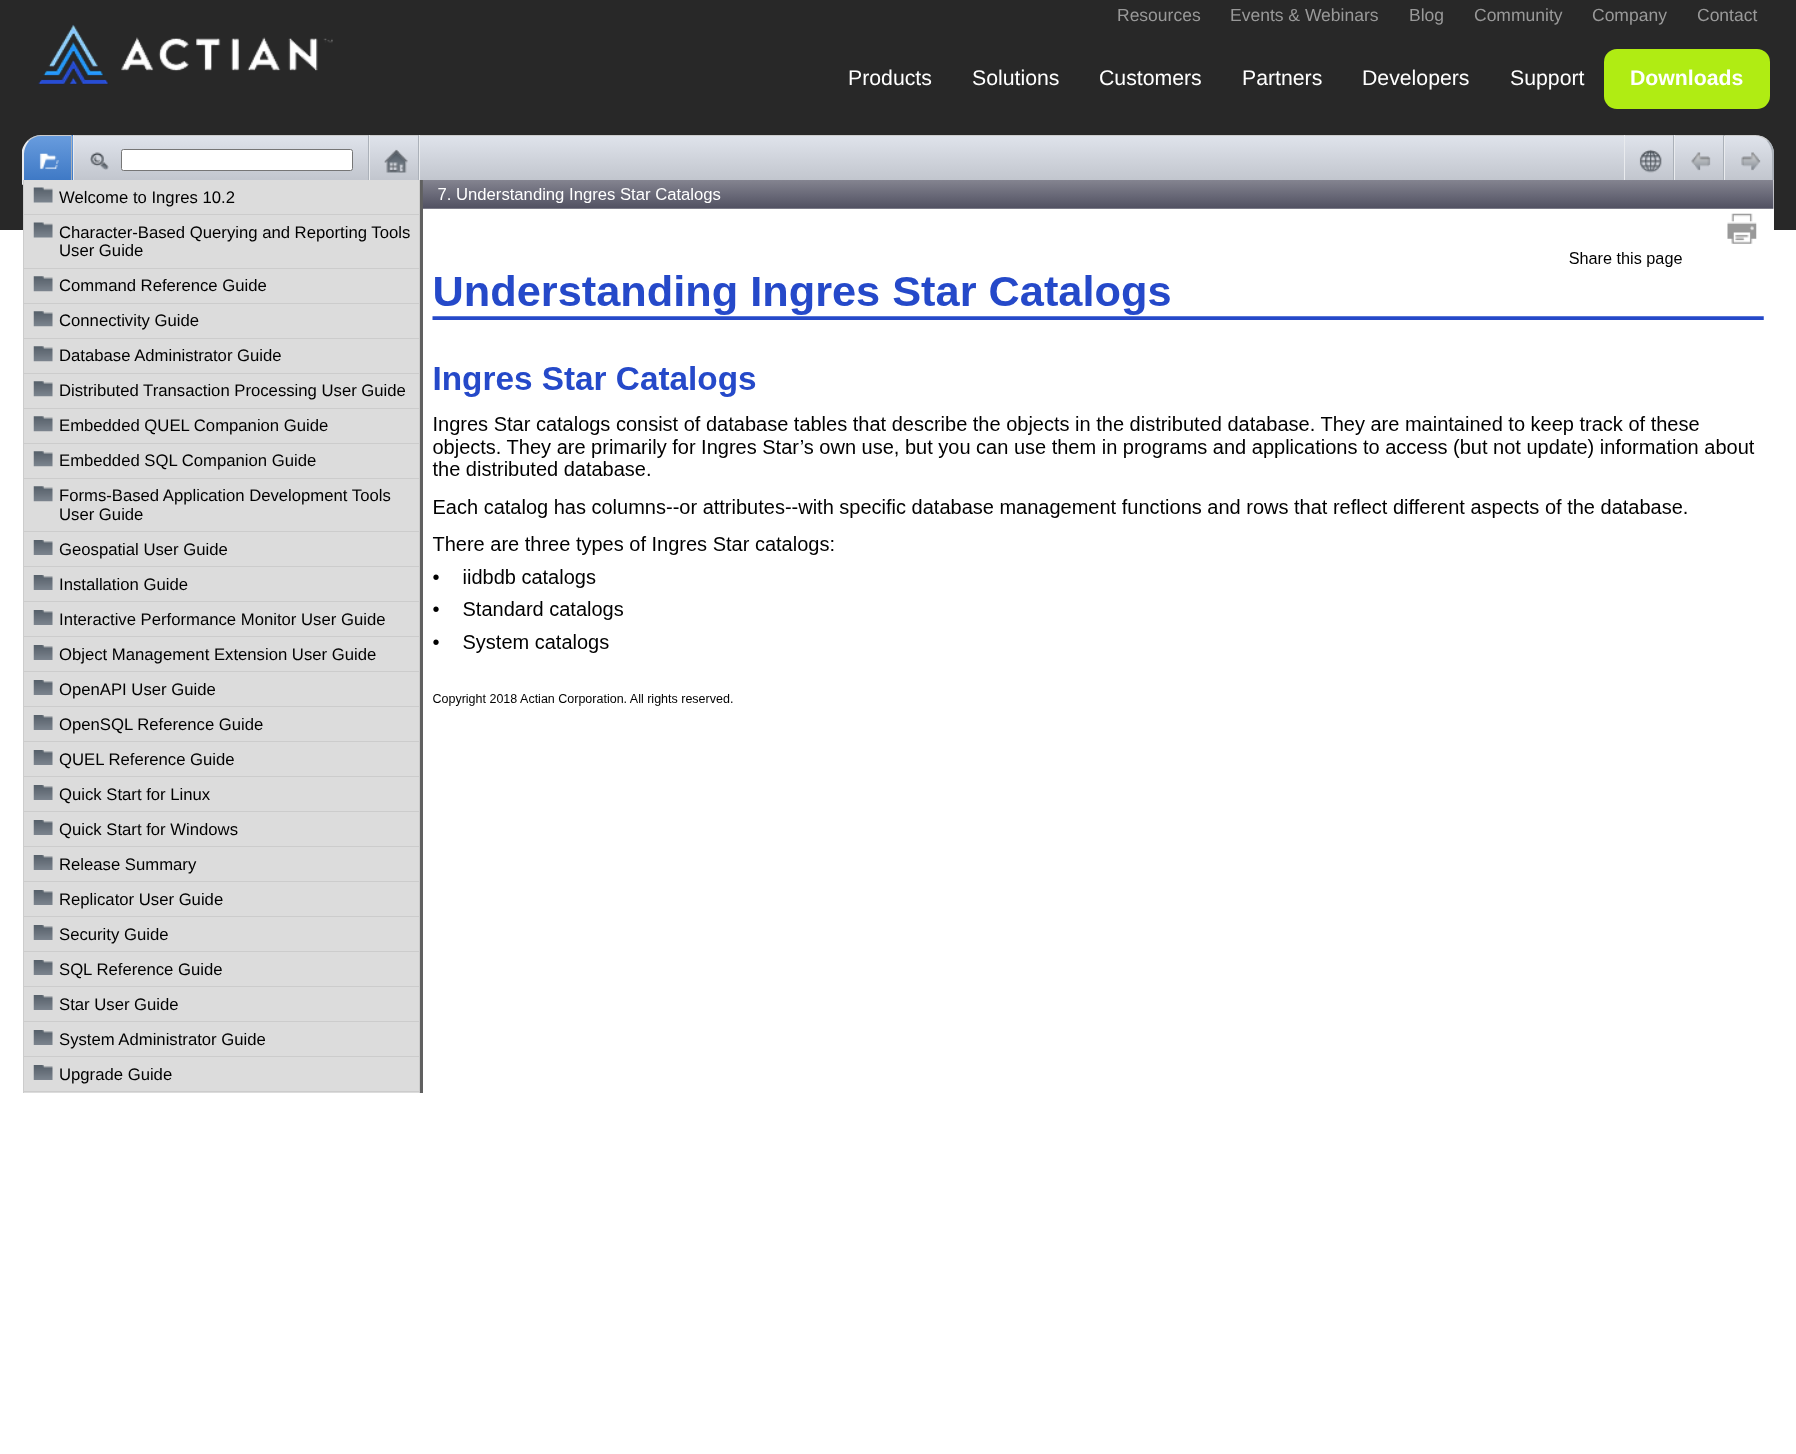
<?xml version="1.0" encoding="UTF-8"?>
<svg xmlns="http://www.w3.org/2000/svg" xmlns:xlink="http://www.w3.org/1999/xlink" width="1796" height="1454">
  <defs>
    <clipPath id="clip1"><path d="M 42 135 h 31 v 50 h -50 v -31 c 0 -10.5 8.5 -19 19 -19 z" /></clipPath>
    <linearGradient id="g1" gradientUnits="userSpaceOnUse" x1="24" y1="89" x2="24" y2="136"><stop offset="0" stop-color="#689cde" /><stop offset="1" stop-color="#3b76c3" /></linearGradient>
    <linearGradient id="g2" gradientUnits="userSpaceOnUse" x1="24" y1="136" x2="24" y2="184"><stop offset="0" stop-color="#689cde" /><stop offset="1" stop-color="#3b76c3" /></linearGradient>
    <linearGradient id="g3" gradientUnits="userSpaceOnUse" x1="74" y1="136" x2="74" y2="184"><stop offset="0" stop-color="#dfe3eb" /><stop offset="1" stop-color="#bfc3cb" /></linearGradient>
    <linearGradient id="g4" gradientUnits="userSpaceOnUse" x1="370" y1="136" x2="370" y2="184"><stop offset="0" stop-color="#dfe3eb" /><stop offset="1" stop-color="#bfc3cb" /></linearGradient>
    <linearGradient id="g5" gradientUnits="userSpaceOnUse" x1="420" y1="136" x2="420" y2="184"><stop offset="0" stop-color="#dfe3eb" /><stop offset="1" stop-color="#bfc3cb" /></linearGradient>
    <linearGradient id="g6" gradientUnits="userSpaceOnUse" x1="1625" y1="136" x2="1625" y2="184"><stop offset="0" stop-color="#dfe3eb" /><stop offset="1" stop-color="#bfc3cb" /></linearGradient>
    <linearGradient id="g7" gradientUnits="userSpaceOnUse" x1="1675" y1="136" x2="1675" y2="184"><stop offset="0" stop-color="#dfe3eb" /><stop offset="1" stop-color="#bfc3cb" /></linearGradient>
    <clipPath id="clip2"><path d="M 1724 135 h 31 c 10.5 0 19 8.5 19 19 v 31 h -50 z" /></clipPath>
    <linearGradient id="g8" gradientUnits="userSpaceOnUse" x1="1725" y1="136" x2="1725" y2="184"><stop offset="0" stop-color="#dfe3eb" /><stop offset="1" stop-color="#bfc3cb" /></linearGradient>
  </defs>
  <rect width="100%" height="100%" fill="#ffffff" />
  <rect width="1796" height="230" fill="#282828" />
  <image x="38" y="24" width="295" height="61" xlink:href="image1.png" />
  <rect x="1604" y="49" width="166" height="60" rx="13" fill="#b0ec13" />
  <g clip-path="url(#clip1)">
    <rect x="36" y="135" width="37" height="1" fill="url(#g1)" />
    <rect x="24" y="136" width="49" height="44" fill="url(#g2)" />
  </g>
  <path d="M 41 135 c -5 0 -10 2 -13 5 l 1 1 c 3 -3 7 -5 12 -5 h 30 l 1 -1 z" fill="#cccccc" />
  <rect x="71" y="136" width="1" height="48" fill="#abb1b9" />
  <path d="M 22 185 v -35 c 1 -4 3 -7 6 -10 l 1 1 c -3 4 -5 8 -5 13 v 30 z" fill="#e9ebee" />
  <image x="39" y="153" width="20" height="17" xlink:href="image2.png" />
  <rect x="74" y="136" width="294" height="44" fill="url(#g3)" />
  <rect x="73" y="135" width="1651" height="1" fill="#cccccc" />
  <rect x="368" y="135" width="1" height="50" fill="#abb1b9" />
  <rect x="73" y="135" width="1" height="50" fill="#e9ebee" />
  <image x="90" y="152" width="19" height="18" xlink:href="image3.png" />
  <rect x="121.5" y="149.5" width="231" height="21" rx="2" fill="#ffffff" stroke="#767676" />
  <rect x="370" y="136" width="48" height="44" fill="url(#g4)" />
  <rect x="418" y="135" width="1" height="50" fill="#abb1b9" />
  <rect x="369" y="135" width="1" height="50" fill="#e9ebee" />
  <image x="384" y="149" width="24" height="24" xlink:href="image4.png" />
  <rect x="420" y="136" width="1204" height="44" fill="url(#g5)" />
  <rect x="419" y="135" width="1" height="50" fill="#e9ebee" />
  <rect x="1625" y="136" width="48" height="44" fill="url(#g6)" />
  <rect x="1673" y="135" width="1" height="50" fill="#abb1b9" />
  <rect x="1624" y="135" width="1" height="50" fill="#e9ebee" />
  <image x="1639" y="149" width="23" height="24" xlink:href="image5.png" />
  <rect x="1675" y="136" width="48" height="44" fill="url(#g7)" />
  <rect x="1723" y="135" width="1" height="50" fill="#abb1b9" />
  <rect x="1674" y="135" width="1" height="50" fill="#e9ebee" />
  <image x="1691" y="152" width="20" height="19" xlink:href="image6.png" />
  <g clip-path="url(#clip2)">
    <rect x="1725" y="136" width="49" height="44" fill="url(#g8)" />
  </g>
  <path d="M 1724 135 l 1 1 h 30 c 5 0 9 2 12 5 l 1 -1 c -3 -3 -8 -5 -13 -5 z" fill="#cccccc" />
  <path d="M 1774 151 v 34 l -2 -2 v -29 c 0 -5 -2 -9 -5 -13 l 1 -1 c 3 3 5 7 6 11 z" fill="#abb1b9" />
  <path d="M 1724 135 v 50 l 1 -1 v -48 z" fill="#e9ebee" />
  <image x="1741" y="152" width="20" height="19" xlink:href="image7.png" />
  <rect x="420" y="180" width="3" height="913" fill="#606060" />
  <rect x="24" y="180" width="395" height="913" fill="#dcdcdc" />
  <rect x="419" y="180" width="1" height="913" fill="#cccccc" />
  <rect x="23" y="180" width="1" height="913" fill="#cccccc" />
  <rect x="24" y="214" width="395" height="1" fill="#cccccc" />
  <image x="33" y="187" width="20" height="16" xlink:href="image8.png" />
  <rect x="24" y="268" width="395" height="1" fill="#cccccc" />
  <image x="33" y="222" width="20" height="16" xlink:href="image8.png" />
  <rect x="24" y="303" width="395" height="1" fill="#cccccc" />
  <image x="33" y="276" width="20" height="16" xlink:href="image9.png" />
  <rect x="24" y="338" width="395" height="1" fill="#cccccc" />
  <image x="33" y="311" width="20" height="16" xlink:href="image9.png" />
  <rect x="24" y="373" width="395" height="1" fill="#cccccc" />
  <image x="33" y="346" width="20" height="16" xlink:href="image9.png" />
  <rect x="24" y="408" width="395" height="1" fill="#cccccc" />
  <image x="33" y="381" width="20" height="16" xlink:href="image9.png" />
  <rect x="24" y="443" width="395" height="1" fill="#cccccc" />
  <image x="33" y="416" width="20" height="16" xlink:href="image9.png" />
  <rect x="24" y="478" width="395" height="1" fill="#cccccc" />
  <image x="33" y="451" width="20" height="16" xlink:href="image9.png" />
  <rect x="24" y="531" width="395" height="1" fill="#cccccc" />
  <image x="33" y="486" width="20" height="16" xlink:href="image9.png" />
  <rect x="24" y="566" width="395" height="1" fill="#cccccc" />
  <image x="33" y="540" width="20" height="15" xlink:href="image10.png" />
  <rect x="24" y="601" width="395" height="1" fill="#cccccc" />
  <image x="33" y="575" width="20" height="15" xlink:href="image10.png" />
  <rect x="24" y="636" width="395" height="1" fill="#cccccc" />
  <image x="33" y="610" width="20" height="15" xlink:href="image10.png" />
  <rect x="24" y="671" width="395" height="1" fill="#cccccc" />
  <image x="33" y="645" width="20" height="15" xlink:href="image10.png" />
  <rect x="24" y="706" width="395" height="1" fill="#cccccc" />
  <image x="33" y="680" width="20" height="15" xlink:href="image10.png" />
  <rect x="24" y="741" width="395" height="1" fill="#cccccc" />
  <image x="33" y="715" width="20" height="15" xlink:href="image10.png" />
  <rect x="24" y="776" width="395" height="1" fill="#cccccc" />
  <image x="33" y="750" width="20" height="15" xlink:href="image10.png" />
  <rect x="24" y="811" width="395" height="1" fill="#cccccc" />
  <image x="33" y="785" width="20" height="15" xlink:href="image10.png" />
  <rect x="24" y="846" width="395" height="1" fill="#cccccc" />
  <image x="33" y="820" width="20" height="15" xlink:href="image10.png" />
  <rect x="24" y="881" width="395" height="1" fill="#cccccc" />
  <image x="33" y="855" width="20" height="15" xlink:href="image10.png" />
  <rect x="24" y="916" width="395" height="1" fill="#cccccc" />
  <image x="33" y="890" width="20" height="15" xlink:href="image10.png" />
  <rect x="24" y="951" width="395" height="1" fill="#cccccc" />
  <image x="33" y="925" width="20" height="15" xlink:href="image10.png" />
  <rect x="24" y="986" width="395" height="1" fill="#cccccc" />
  <image x="33" y="960" width="20" height="15" xlink:href="image10.png" />
  <rect x="24" y="1021" width="395" height="1" fill="#cccccc" />
  <image x="33" y="995" width="20" height="15" xlink:href="image10.png" />
  <rect x="24" y="1056" width="395" height="1" fill="#cccccc" />
  <image x="33" y="1030" width="20" height="15" xlink:href="image10.png" />
  <rect x="24" y="1091" width="395" height="1" fill="#cccccc" />
  <image x="33" y="1065" width="20" height="15" xlink:href="image10.png" />
  <rect x="423" y="180" width="1351" height="50" fill="#ffffff" />
  <image x="422" y="180" width="1352" height="526" xlink:href="image11.png" />
  <text x="1117" y="21" style="font-family: Liberation Sans; font-size: 17.5px; fill: #999999">Resources</text>
  <text x="1230" y="21" style="font-family: Liberation Sans; font-size: 17.5px; fill: #999999">Events &amp; Webinars</text>
  <text x="1409" y="21" style="font-family: Liberation Sans; font-size: 17.5px; fill: #999999">Blog</text>
  <text x="1474" y="21" style="font-family: Liberation Sans; font-size: 17.5px; fill: #999999">Community</text>
  <text x="1592" y="21" style="font-family: Liberation Sans; font-size: 17.5px; fill: #999999">Company</text>
  <text x="1697" y="21" style="font-family: Liberation Sans; font-size: 17.5px; fill: #999999">Contact</text>
  <text x="848" y="85" style="font-family: Liberation Sans; font-size: 21.25px; fill: #ffffff">Products</text>
  <text x="972" y="85" style="font-family: Liberation Sans; font-size: 21.25px; fill: #ffffff">Solutions</text>
  <text x="1099" y="85" style="font-family: Liberation Sans; font-size: 21.25px; fill: #ffffff">Customers</text>
  <text x="1242" y="85" style="font-family: Liberation Sans; font-size: 21.25px; fill: #ffffff">Partners</text>
  <text x="1362" y="85" style="font-family: Liberation Sans; font-size: 21.25px; fill: #ffffff">Developers</text>
  <text x="1510" y="85" style="font-family: Liberation Sans; font-size: 21.25px; fill: #ffffff">Support</text>
  <text x="1630" y="85" style="font-family: Liberation Sans; font-size: 21.25px; font-weight: bold; fill: #ffffff">Downloads</text>
  <text x="59" y="203" style="font-family: Liberation Sans; font-size: 16.7px; fill: #000000">Welcome to Ingres 10.2</text>
  <text x="59" y="238" style="font-family: Liberation Sans; font-size: 16.7px; fill: #000000">Character-Based Querying and Reporting Tools</text>
  <text x="59" y="256" style="font-family: Liberation Sans; font-size: 16.7px; fill: #000000">User Guide</text>
  <text x="59" y="291" style="font-family: Liberation Sans; font-size: 16.7px; fill: #000000">Command Reference Guide</text>
  <text x="59" y="326" style="font-family: Liberation Sans; font-size: 16.7px; fill: #000000">Connectivity Guide</text>
  <text x="59" y="361" style="font-family: Liberation Sans; font-size: 16.7px; fill: #000000">Database Administrator Guide</text>
  <text x="59" y="396" style="font-family: Liberation Sans; font-size: 16.7px; fill: #000000">Distributed Transaction Processing User Guide</text>
  <text x="59" y="431" style="font-family: Liberation Sans; font-size: 16.7px; fill: #000000">Embedded QUEL Companion Guide</text>
  <text x="59" y="466" style="font-family: Liberation Sans; font-size: 16.7px; fill: #000000">Embedded SQL Companion Guide</text>
  <text x="59" y="501" style="font-family: Liberation Sans; font-size: 16.7px; fill: #000000">Forms-Based Application Development Tools</text>
  <text x="59" y="520" style="font-family: Liberation Sans; font-size: 16.7px; fill: #000000">User Guide</text>
  <text x="59" y="555" style="font-family: Liberation Sans; font-size: 16.7px; fill: #000000">Geospatial User Guide</text>
  <text x="59" y="590" style="font-family: Liberation Sans; font-size: 16.7px; fill: #000000">Installation Guide</text>
  <text x="59" y="625" style="font-family: Liberation Sans; font-size: 16.7px; fill: #000000">Interactive Performance Monitor User Guide</text>
  <text x="59" y="660" style="font-family: Liberation Sans; font-size: 16.7px; fill: #000000">Object Management Extension User Guide</text>
  <text x="59" y="695" style="font-family: Liberation Sans; font-size: 16.7px; fill: #000000">OpenAPI User Guide</text>
  <text x="59" y="730" style="font-family: Liberation Sans; font-size: 16.7px; fill: #000000">OpenSQL Reference Guide</text>
  <text x="59" y="765" style="font-family: Liberation Sans; font-size: 16.7px; fill: #000000">QUEL Reference Guide</text>
  <text x="59" y="800" style="font-family: Liberation Sans; font-size: 16.7px; fill: #000000">Quick Start for Linux</text>
  <text x="59" y="835" style="font-family: Liberation Sans; font-size: 16.7px; fill: #000000">Quick Start for Windows</text>
  <text x="59" y="870" style="font-family: Liberation Sans; font-size: 16.7px; fill: #000000">Release Summary</text>
  <text x="59" y="905" style="font-family: Liberation Sans; font-size: 16.7px; fill: #000000">Replicator User Guide</text>
  <text x="59" y="940" style="font-family: Liberation Sans; font-size: 16.7px; fill: #000000">Security Guide</text>
  <text x="59" y="975" style="font-family: Liberation Sans; font-size: 16.7px; fill: #000000">SQL Reference Guide</text>
  <text x="59" y="1010" style="font-family: Liberation Sans; font-size: 16.7px; fill: #000000">Star User Guide</text>
  <text x="59" y="1045" style="font-family: Liberation Sans; font-size: 16.7px; fill: #000000">System Administrator Guide</text>
  <text x="59" y="1080" style="font-family: Liberation Sans; font-size: 16.7px; fill: #000000">Upgrade Guide</text>
</svg>
